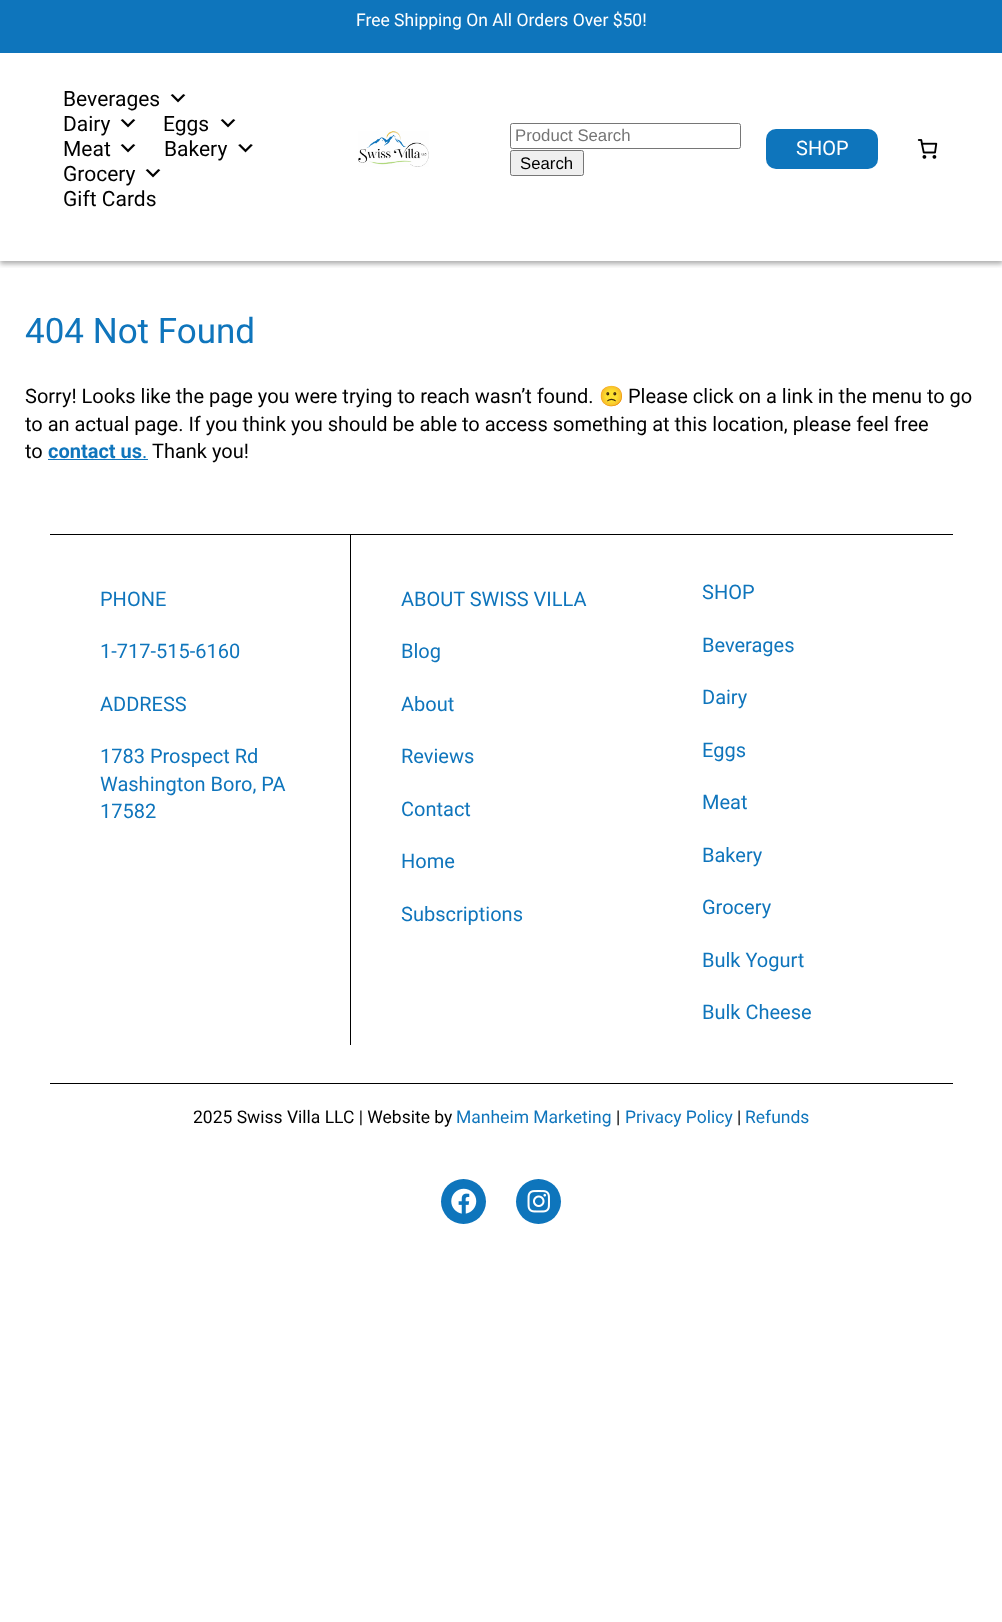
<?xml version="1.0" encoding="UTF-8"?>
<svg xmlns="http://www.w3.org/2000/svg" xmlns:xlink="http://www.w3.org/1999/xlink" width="1002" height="1622">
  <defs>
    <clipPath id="clip1"><rect x="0" y="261" width="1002" height="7" /></clipPath>
  </defs>
  <rect width="100%" height="100%" fill="#ffffff" />
  <g clip-path="url(#clip1)">
    <rect y="39" width="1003" height="225" fill="#000000" fill-opacity="0.32" filter="blur(2.5px)" />
  </g>
  <rect width="1002" height="53" fill="#0e75bc" />
  <image x="170" y="94" width="16" height="9" xlink:href="image1.png" />
  <image x="120" y="119" width="16" height="9" xlink:href="image1.png" />
  <image x="220" y="119" width="16" height="9" xlink:href="image1.png" />
  <image x="120" y="144" width="16" height="9" xlink:href="image1.png" />
  <image x="238" y="144" width="15" height="9" xlink:href="image2.png" />
  <image x="145" y="169" width="16" height="9" xlink:href="image1.png" />
  <image x="358" y="131" width="71" height="36" xlink:href="image3.png" />
  <rect x="510.5" y="123.5" width="230" height="25" rx="2" fill="none" stroke="#767676" />
  <rect x="510.5" y="150.5" width="73" height="25" rx="2" fill="#efefef" stroke="#767676" />
  <rect x="766" y="129" width="112" height="40" rx="10" fill="#0e75bc" />
  <image x="917" y="139" width="21" height="20" xlink:href="image4.png" />
  <rect x="48" y="459" width="100" height="1" fill="#0f75bc" />
  <rect x="50" y="534" width="903" height="1" fill="#000000" />
  <rect x="50" y="1083" width="903" height="1" fill="#000000" />
  <rect x="350" y="535" width="1" height="510" fill="#000000" />
  <circle cx="463.5" cy="1201.5" r="22.5" fill="#0e75bc" />
  <image x="451" y="1188" width="26" height="26" xlink:href="image5.png" />
  <circle cx="538.5" cy="1201.5" r="22.5" fill="#0e75bc" />
  <image x="527" y="1190" width="23" height="23" xlink:href="image6.png" />
  <text x="356" y="26" style="font-family: Roboto; font-size: 17.5px; fill: #ffffff">Free Shipping On All Orders Over $50!</text>
  <text x="63" y="106" style="font-family: Roboto; font-size: 21px; fill: #000000">Beverages</text>
  <text x="63" y="131" style="font-family: Roboto; font-size: 21px; fill: #000000">Dairy</text>
  <text x="163" y="131" style="font-family: Roboto; font-size: 21px; fill: #000000">Eggs</text>
  <text x="63" y="156" style="font-family: Roboto; font-size: 21px; fill: #000000">Meat</text>
  <text x="164" y="156" style="font-family: Roboto; font-size: 21px; fill: #000000">Bakery</text>
  <text x="63" y="181" style="font-family: Roboto; font-size: 21px; fill: #000000">Grocery</text>
  <text x="63" y="206" style="font-family: Roboto; font-size: 21px; fill: #000000">Gift Cards</text>
  <text x="515" y="141" style="font-family: Liberation Sans; font-size: 16.75px; fill: #757575">Product Search</text>
  <text x="520" y="169" style="font-family: Liberation Sans; font-size: 16.75px; fill: #000000">Search</text>
  <text x="796" y="155" style="font-family: Roboto; font-size: 20px; fill: #ffffff">SHOP</text>
  <text x="25" y="343" style="font-family: Roboto; font-size: 35px; fill: #0f75bc">404 Not Found</text>
  <text x="25" y="403" style="font-family: Roboto; font-size: 20px; fill: #000000">Sorry! Looks like the page you were trying to reach wasn’t found.</text>
  <text x="599" y="403" style="font-family: Noto Color Emoji; font-size: 20px; fill: #000000">🙁</text>
  <text x="628" y="403" style="font-family: Roboto; font-size: 20px; fill: #000000">Please click on a link in the menu to go</text>
  <text x="25" y="431" style="font-family: Roboto; font-size: 20px; fill: #000000">to an actual page. If you think you should be able to access something at this location, please feel free</text>
  <text x="25" y="458" style="font-family: Roboto; font-size: 20px; fill: #000000">to</text>
  <text x="48" y="458" style="font-family: Roboto; font-size: 20px; font-weight: bold; fill: #0f75bc">contact us</text>
  <text x="142" y="458" style="font-family: Roboto; font-size: 20px; fill: #0f75bc">.</text>
  <text x="152" y="458" style="font-family: Roboto; font-size: 20px; fill: #000000">Thank you!</text>
  <text x="100" y="606" style="font-family: Roboto; font-size: 20px; fill: #0f75bc">PHONE</text>
  <text x="100" y="658" style="font-family: Roboto; font-size: 20px; fill: #0f75bc">1-717-515-6160</text>
  <text x="100" y="711" style="font-family: Roboto; font-size: 20px; fill: #0f75bc">ADDRESS</text>
  <text x="100" y="763" style="font-family: Roboto; font-size: 20px; fill: #0f75bc">1783 Prospect Rd</text>
  <text x="100" y="791" style="font-family: Roboto; font-size: 20px; fill: #0f75bc">Washington Boro, PA</text>
  <text x="100" y="818" style="font-family: Roboto; font-size: 20px; fill: #0f75bc">17582</text>
  <text x="401" y="606" style="font-family: Roboto; font-size: 20px; fill: #0f75bc">ABOUT SWISS VILLA</text>
  <text x="401" y="658" style="font-family: Roboto; font-size: 20px; fill: #0f75bc">Blog</text>
  <text x="401" y="711" style="font-family: Roboto; font-size: 20px; fill: #0f75bc">About</text>
  <text x="401" y="763" style="font-family: Roboto; font-size: 20px; fill: #0f75bc">Reviews</text>
  <text x="401" y="816" style="font-family: Roboto; font-size: 20px; fill: #0f75bc">Contact</text>
  <text x="401" y="868" style="font-family: Roboto; font-size: 20px; fill: #0f75bc">Home</text>
  <text x="401" y="921" style="font-family: Roboto; font-size: 20px; fill: #0f75bc">Subscriptions</text>
  <text x="702" y="599" style="font-family: Roboto; font-size: 20px; fill: #0f75bc">SHOP</text>
  <text x="702" y="652" style="font-family: Roboto; font-size: 20px; fill: #0f75bc">Beverages</text>
  <text x="702" y="704" style="font-family: Roboto; font-size: 20px; fill: #0f75bc">Dairy</text>
  <text x="702" y="757" style="font-family: Roboto; font-size: 20px; fill: #0f75bc">Eggs</text>
  <text x="702" y="809" style="font-family: Roboto; font-size: 20px; fill: #0f75bc">Meat</text>
  <text x="702" y="862" style="font-family: Roboto; font-size: 20px; fill: #0f75bc">Bakery</text>
  <text x="702" y="914" style="font-family: Roboto; font-size: 20px; fill: #0f75bc">Grocery</text>
  <text x="702" y="967" style="font-family: Roboto; font-size: 20px; fill: #0f75bc">Bulk Yogurt</text>
  <text x="702" y="1019" style="font-family: Roboto; font-size: 20px; fill: #0f75bc">Bulk Cheese</text>
  <text x="193" y="1123" style="font-family: Roboto; font-size: 17.5px; fill: #000000">2025 Swiss Villa LLC | Website by</text>
  <text x="456" y="1123" style="font-family: Roboto; font-size: 17.5px; fill: #0f75bc">Manheim Marketing</text>
  <text x="616" y="1123" style="font-family: Roboto; font-size: 17.5px; fill: #000000">|</text>
  <text x="625" y="1123" style="font-family: Roboto; font-size: 17.5px; fill: #0f75bc">Privacy Policy</text>
  <text x="737" y="1123" style="font-family: Roboto; font-size: 17.5px; fill: #000000">|</text>
  <text x="745" y="1123" style="font-family: Roboto; font-size: 17.5px; fill: #0f75bc">Refunds</text>
</svg>
